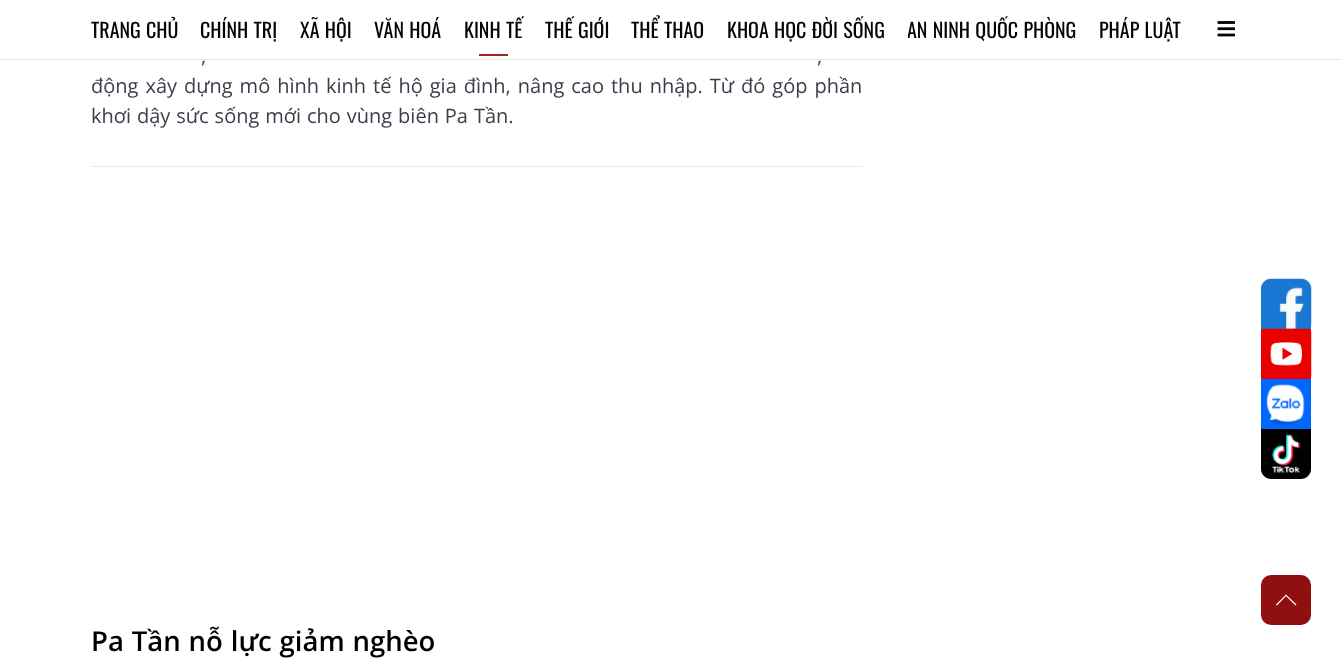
<?xml version="1.0" encoding="UTF-8"?>
<svg xmlns="http://www.w3.org/2000/svg" xmlns:xlink="http://www.w3.org/1999/xlink" width="1341" height="665">
  <defs>
    <clipPath id="clip1"><rect x="908" y="4" width="168" height="52" /></clipPath>
  </defs>
  <rect width="100%" height="100%" fill="#ffffff" />
  <rect y="59" width="1341" height="1" fill="#e6e6e6" />
  <rect x="479" y="54" width="29" height="2" fill="#9d2626" />
  <image x="1217" y="21" width="18" height="16" xlink:href="image1.png" />
  <rect x="91" y="166" width="772" height="1" fill="#e6ebec" />
  <path d="M 1271 279 h 30 c 5.5 0 10 4.5 10 10 v 40 h -50 v -40 c 0 -5.5 4.5 -10 10 -10 z" fill="#1976d2" />
  <image x="1261" y="278" width="51" height="51" xlink:href="image2.png" />
  <rect x="1261" y="329" width="50" height="50" fill="#eb0000" />
  <image x="1263" y="328" width="49" height="49" xlink:href="image3.png" />
  <rect x="1261" y="379" width="50" height="50" fill="#0068ff" />
  <image x="1266" y="384" width="39" height="42" xlink:href="image4.png" />
  <path d="M 1261 429 h 50 v 40 c 0 5.5 -4.5 10 -10 10 h -30 c -5.5 0 -10 -4.5 -10 -10 z" fill="#000000" />
  <image x="1272" y="434" width="29" height="39" xlink:href="image5.png" />
  <rect x="1261" y="575" width="50" height="50" rx="10" fill="#901010" />
  <path d="M 1296.5 604.5 l -1 1 l -9.5 -9.5 l -9 9.5 l -1 -1 l 10 -10 z" fill="#ffffff" />
  <text x="91" y="38" word-spacing="0.75" style="font-family: Oswald; font-size: 20px; fill: #05040b">TRANG CHỦ</text>
  <text x="200" y="38" word-spacing="0.75" style="font-family: Oswald; font-size: 20px; fill: #05040b">CHÍNH TRỊ</text>
  <text x="300" y="38" word-spacing="0.75" style="font-family: Oswald; font-size: 20px; fill: #05040b">XÃ HỘI</text>
  <text x="374" y="38" word-spacing="0.75" style="font-family: Oswald; font-size: 20px; fill: #05040b">VĂN HOÁ</text>
  <text x="464" y="38" word-spacing="0.75" style="font-family: Oswald; font-size: 20px; fill: #05040b">KINH TẾ</text>
  <text x="545" y="38" word-spacing="0.75" style="font-family: Oswald; font-size: 20px; fill: #05040b">THẾ GIỚI</text>
  <text x="631" y="38" word-spacing="0.75" style="font-family: Oswald; font-size: 20px; fill: #05040b">THỂ THAO</text>
  <text x="727" y="38" word-spacing="0.75" style="font-family: Oswald; font-size: 20px; fill: #05040b">KHOA HỌC ĐỜI SỐNG</text>
  <g clip-path="url(#clip1)">
    <text x="907" y="38" word-spacing="0.75" style="font-family: Oswald; font-size: 20px; fill: #05040b">AN NINH QUỐC PHÒNG</text>
  </g>
  <text x="1099" y="38" word-spacing="0.75" style="font-family: Oswald; font-size: 20px; fill: #05040b">PHÁP LUẬT</text>
  <text x="201" y="63" word-spacing="1" style="font-family: Open Sans; font-size: 20px; fill: #3f3d4b">,</text>
  <text x="817" y="63" word-spacing="1" style="font-family: Open Sans; font-size: 20px; fill: #3f3d4b">,</text>
  <text x="91" y="93" word-spacing="1.8" style="font-family: Open Sans; font-size: 20px; fill: #3f3d4b">động xây dựng mô hình kinh tế hộ gia đình, nâng cao thu nhập. Từ đó góp phần</text>
  <text x="91" y="123" word-spacing="0.75" style="font-family: Open Sans; font-size: 20px; fill: #3f3d4b">khơi dậy sức sống mới cho vùng biên Pa Tần.</text>
  <text x="91" y="651" word-spacing="0.75" style="font-family: Open Sans; font-size: 27.5px; font-weight: 600; fill: #000000">Pa Tần nỗ lực giảm nghèo</text>
</svg>
